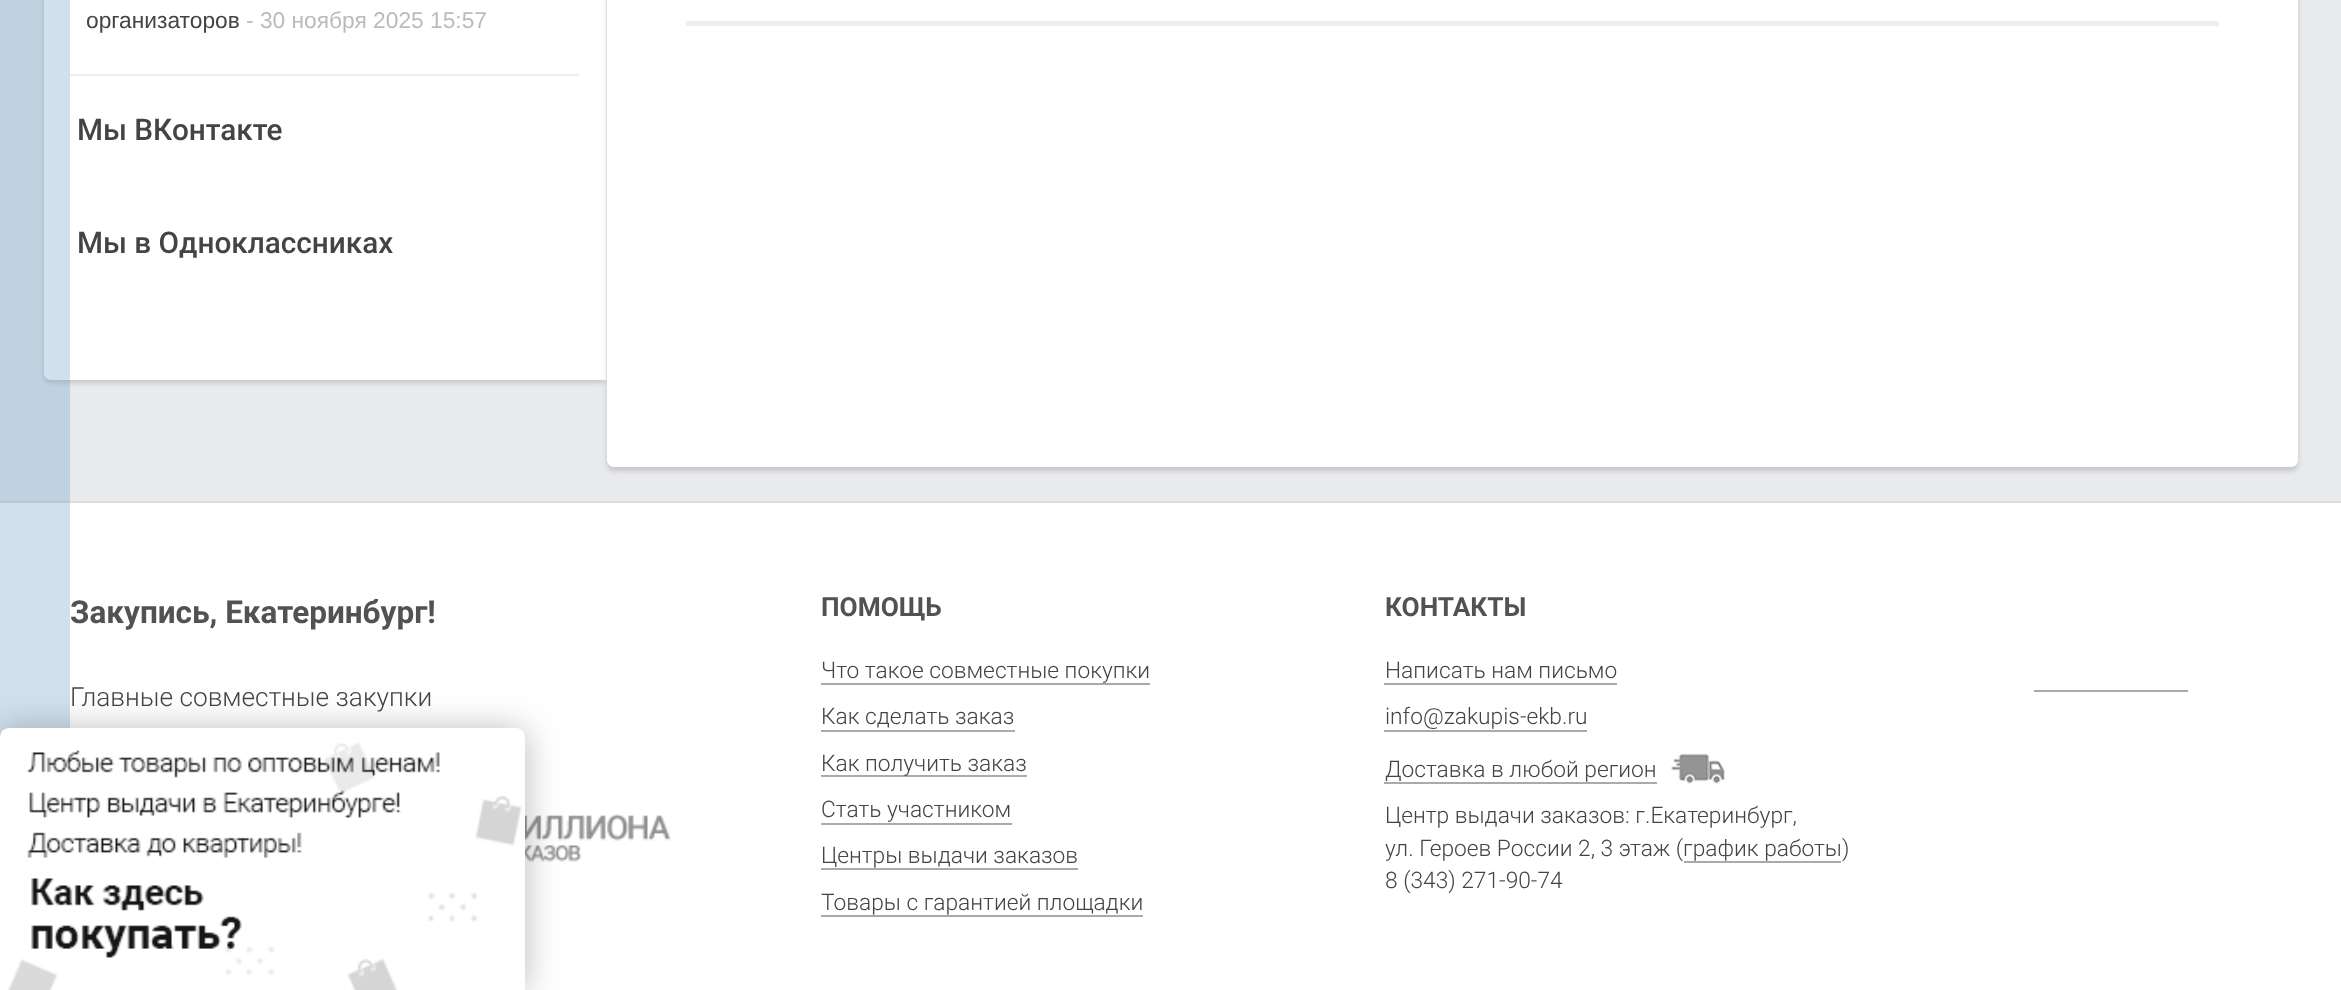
<?xml version="1.0" encoding="UTF-8"?>
<svg xmlns="http://www.w3.org/2000/svg" xmlns:xlink="http://www.w3.org/1999/xlink" width="2341" height="990">
  <rect width="100%" height="100%" fill="#e8eaed" />
  <rect x="44" y="-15" width="563" height="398" rx="7" fill="#000000" fill-opacity="0.15" filter="blur(2.5px)" />
  <path d="M 51 -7 h 556 v 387 h -556 c -4 0 -7 -3 -7 -7 v -373 c 0 -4 3 -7 7 -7 z" fill="#ffffff" />
  <rect y="503" width="2341" height="487" fill="#ffffff" />
  <rect y="501" width="2341" height="2" fill="#dddddd" />
  <rect width="70" height="737" fill="#639cbf" fill-opacity="0.3" />
  <rect x="606" width="1" height="380" fill="#f4f4f4" />
  <rect x="70" y="74" width="509" height="2" fill="#eeeeee" />
  <rect x="607" y="-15" width="1691" height="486" rx="7" fill="#000000" fill-opacity="0.15" filter="blur(2.5px)" />
  <path d="M 607 -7 h 1684 c 4 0 7 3 7 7 v 460 c 0 4 -3 7 -7 7 h -1677 c -4 0 -7 -3 -7 -7 z" fill="#ffffff" />
  <rect x="686" y="21" width="1533" height="5" fill="#eeeeee" />
  <image x="525" y="814" width="146" height="48" xlink:href="image1.png" />
  <rect x="821" y="683" width="329" height="2" fill="#aaaaaa" />
  <rect x="821" y="730" width="194" height="2" fill="#aaaaaa" />
  <rect x="821" y="775" width="206" height="2" fill="#aaaaaa" />
  <rect x="821" y="823" width="191" height="2" fill="#aaaaaa" />
  <rect x="821" y="868" width="257" height="2" fill="#aaaaaa" />
  <rect x="821" y="915" width="322" height="2" fill="#aaaaaa" />
  <rect x="1384" y="683" width="233" height="2" fill="#aaaaaa" />
  <rect x="1384" y="730" width="203" height="2" fill="#aaaaaa" />
  <rect x="1384" y="782" width="273" height="2" fill="#aaaaaa" />
  <image x="1671" y="753" width="54" height="31" xlink:href="image2.png" />
  <rect x="2034" y="690" width="154" height="2" fill="#aaaaaa" />
  <rect y="730" width="525" height="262" rx="9" fill="#323232" fill-opacity="0.35" filter="blur(17.5px)" />
  <image x="0" y="728" width="525" height="262" xlink:href="image3.png" />
  <text x="86" y="28" style="font-family: Liberation Sans; font-size: 22.75px; fill: #444444">организаторов</text>
  <text x="246" y="28" style="font-family: Liberation Sans; font-size: 22.75px; fill: #bbbbbb">- 30 ноября 2025 15:57</text>
  <text x="77" y="140" style="font-family: Roboto; font-size: 29.75px; font-weight: 500; fill: #444444">Мы ВКонтакте</text>
  <text x="77" y="253" style="font-family: Roboto; font-size: 29.75px; font-weight: 500; fill: #444444">Мы в Одноклассниках</text>
  <text x="70" y="623" style="font-family: Roboto; font-size: 31.5px; font-weight: bold; fill: #535252">Закупись, Екатеринбург!</text>
  <text x="70" y="706" style="font-family: Roboto; font-size: 26.25px; font-weight: 300; fill: #444444">Главные совместные закупки</text>
  <text x="821" y="616" style="font-family: Roboto; font-size: 26.25px; font-weight: bold; fill: #535252">ПОМОЩЬ</text>
  <text x="821" y="678" style="font-family: Roboto; font-size: 22.75px; font-weight: 300; fill: #444444">Что такое совместные покупки</text>
  <text x="821" y="724" style="font-family: Roboto; font-size: 22.75px; font-weight: 300; fill: #444444">Как сделать заказ</text>
  <text x="821" y="771" style="font-family: Roboto; font-size: 22.75px; font-weight: 300; fill: #444444">Как получить заказ</text>
  <text x="821" y="817" style="font-family: Roboto; font-size: 22.75px; font-weight: 300; fill: #444444">Стать участником</text>
  <text x="821" y="863" style="font-family: Roboto; font-size: 22.75px; font-weight: 300; fill: #444444">Центры выдачи заказов</text>
  <text x="821" y="910" style="font-family: Roboto; font-size: 22.75px; font-weight: 300; fill: #444444">Товары с гарантией площадки</text>
  <text x="1385" y="616" style="font-family: Roboto; font-size: 26.25px; font-weight: bold; fill: #535252">КОНТАКТЫ</text>
  <text x="1385" y="678" style="font-family: Roboto; font-size: 22.75px; font-weight: 300; fill: #444444">Написать нам письмо</text>
  <text x="1385" y="724" style="font-family: Roboto; font-size: 22.75px; font-weight: 300; fill: #444444">info@zakupis-ekb.ru</text>
  <text x="1385" y="777" style="font-family: Roboto; font-size: 22.75px; font-weight: 300; fill: #444444">Доставка в любой регион</text>
  <text x="1385" y="823" style="font-family: Roboto; font-size: 22.75px; font-weight: 300; fill: #444444">Центр выдачи заказов: г.Екатеринбург,</text>
  <text x="1385" y="856" style="font-family: Roboto; font-size: 22.75px; font-weight: 300; fill: #444444">ул. Героев России 2, 3 этаж (график работы)</text>
  <rect x="1684" y="861" width="157" height="2" fill="#aaaaaa" />
  <text x="1385" y="888" style="font-family: Roboto; font-size: 22.75px; font-weight: 300; fill: #444444">8 (343) 271-90-74</text>
</svg>
